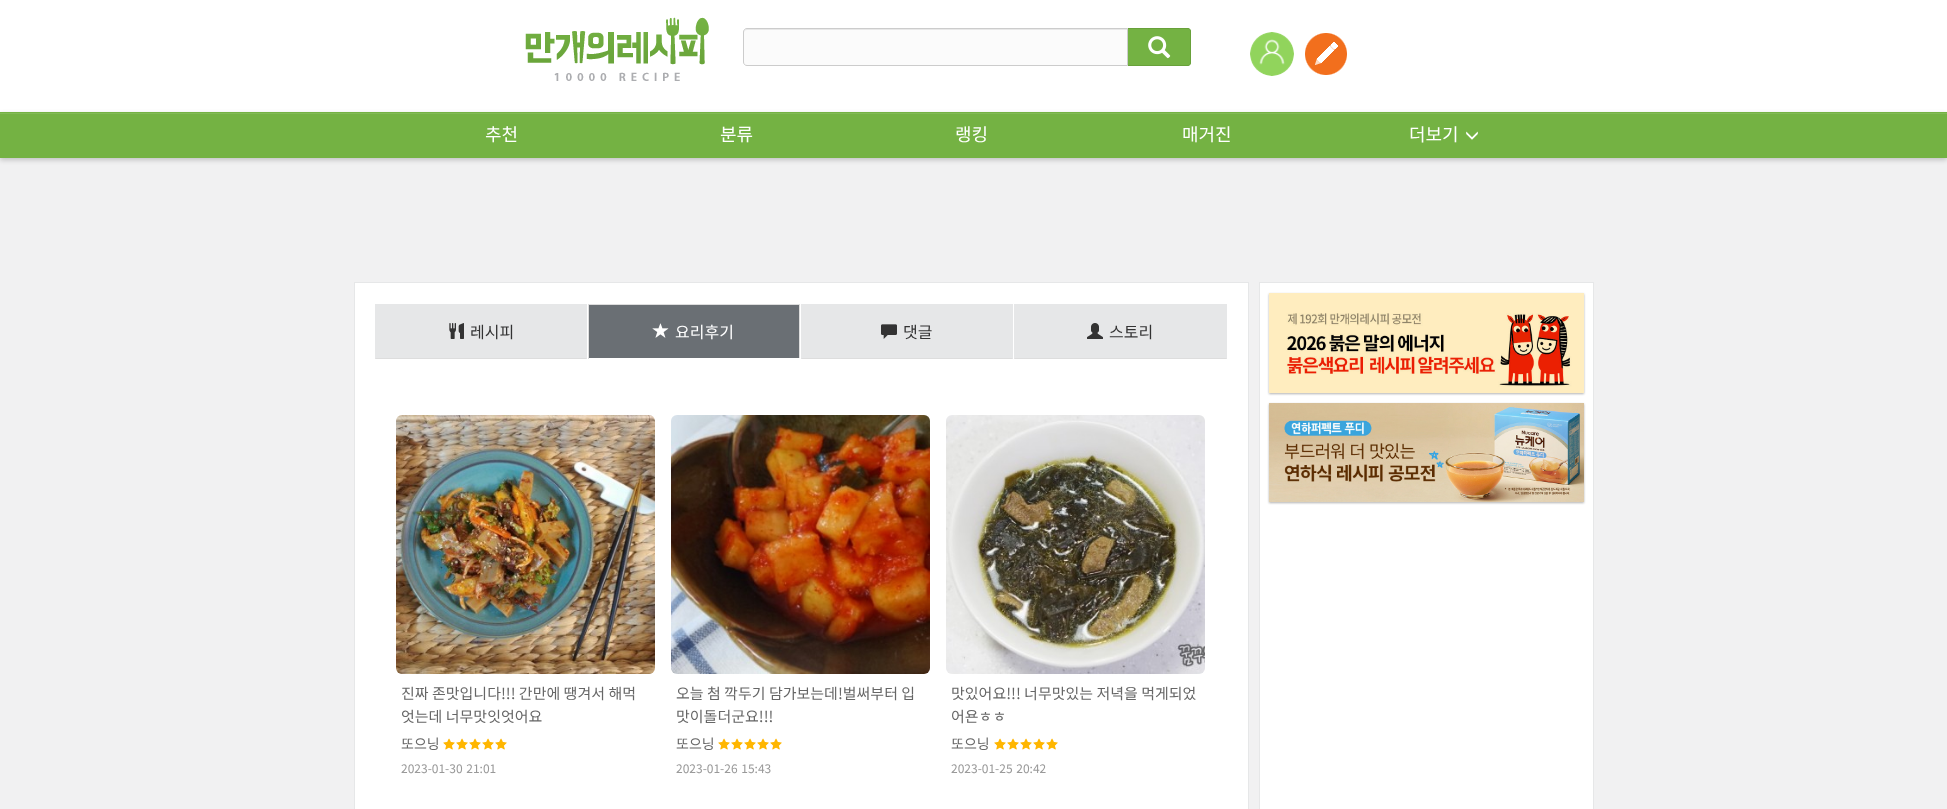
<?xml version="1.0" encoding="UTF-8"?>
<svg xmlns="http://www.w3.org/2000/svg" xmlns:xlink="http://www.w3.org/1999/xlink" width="1947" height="809">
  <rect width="100%" height="100%" fill="#f1f1f2" />
  <rect width="1947" height="112" fill="#ffffff" />
  <image x="525" y="17" width="184" height="64" xlink:href="image1.png" />
  <path d="M 1127.5 28.5 h 60.5 c 1.5 0 2.5 1 2.5 2.5 v 32 c 0 1.5 -1 2.5 -2.5 2.5 h -60.5 z" fill="#74b243" stroke="#68a13a" />
  <path d="M 747 28 h 381 v 38 h -381 c -2 0 -4 -2 -4 -4 v -30 c 0 -2 2 -4 4 -4 z" fill="#fbfbfb" />
  <path d="M 747 30 h 380 v -1 h -380 c -2 0 -3 1 -3 3 v 1 c 0 -2 1 -3 3 -3 z" fill="#e8e8e8" />
  <path d="M 747 28.5 h 380.5 v 37 h -380.5 c -2 0 -3.5 -1.5 -3.5 -3.5 v -30 c 0 -2 1.5 -3.5 3.5 -3.5 z" fill="none" stroke="#cccccc" />
  <image x="1148" y="36" width="23" height="23" xlink:href="image2.png" />
  <image x="1250" y="32" width="44" height="44" xlink:href="image3.png" />
  <image x="1305" y="33" width="42" height="42" xlink:href="image4.png" />
  <rect y="114" width="1947" height="46" fill="#000000" fill-opacity="0.2" filter="blur(2.5px)" />
  <image x="0" y="112" width="1947" height="46" xlink:href="image5.png" />
  <image x="1466" y="131" width="12" height="9" xlink:href="image6.png" />
  <image x="354" y="283" width="1240" height="526" xlink:href="image7.png" />
  <rect x="354" y="282" width="895" height="1" fill="#e6e7e8" />
  <rect x="375" y="304" width="212" height="55" fill="#e6e7e8" />
  <path d="M 587 359 h -212 l 1 -1 h 210 z" fill="#dddddd" />
  <image x="449" y="323" width="15" height="16" xlink:href="image8.png" />
  <rect x="589" y="305" width="210" height="53" fill="#6a6f74" />
  <rect x="588" y="304" width="212" height="1" fill="#dddddd" />
  <rect x="799" y="304" width="1" height="55" fill="#dddddd" />
  <rect x="799" y="358" width="1" height="1" fill="#ffffff" />
  <rect x="588" y="304" width="1" height="55" fill="#dddddd" />
  <image x="652" y="323" width="17" height="15" xlink:href="image9.png" />
  <rect x="801" y="304" width="212" height="55" fill="#e6e7e8" />
  <path d="M 1013 359 h -212 l 1 -1 h 210 z" fill="#dddddd" />
  <image x="881" y="324" width="16" height="15" xlink:href="image10.png" />
  <rect x="1014" y="304" width="213" height="55" fill="#e6e7e8" />
  <path d="M 1227 359 h -213 l 1 -1 h 211 z" fill="#dddddd" />
  <image x="1087" y="323" width="16" height="16" xlink:href="image11.png" />
  <image x="396" y="415" width="259" height="259" xlink:href="image12.png" />
  <image x="443" y="738" width="12" height="12" xlink:href="image13.png" />
  <image x="456" y="738" width="12" height="12" xlink:href="image13.png" />
  <image x="469" y="738" width="12" height="12" xlink:href="image13.png" />
  <image x="482" y="738" width="12" height="12" xlink:href="image13.png" />
  <image x="495" y="738" width="12" height="12" xlink:href="image13.png" />
  <image x="671" y="415" width="259" height="259" xlink:href="image14.png" />
  <image x="718" y="738" width="12" height="12" xlink:href="image13.png" />
  <image x="731" y="738" width="12" height="12" xlink:href="image13.png" />
  <image x="744" y="738" width="12" height="12" xlink:href="image13.png" />
  <image x="757" y="738" width="12" height="12" xlink:href="image13.png" />
  <image x="770" y="738" width="12" height="12" xlink:href="image13.png" />
  <image x="946" y="415" width="259" height="259" xlink:href="image15.png" />
  <image x="994" y="738" width="12" height="12" xlink:href="image13.png" />
  <image x="1007" y="738" width="12" height="12" xlink:href="image13.png" />
  <image x="1020" y="738" width="12" height="12" xlink:href="image13.png" />
  <image x="1033" y="738" width="12" height="12" xlink:href="image13.png" />
  <image x="1046" y="738" width="12" height="12" xlink:href="image13.png" />
  <rect x="1259" y="282" width="335" height="1" fill="#e6e7e8" />
  <rect x="1269" y="294" width="315" height="100" fill="#000000" fill-opacity="0.3" filter="blur(1px)" />
  <image x="1269" y="293" width="315" height="100" xlink:href="image16.png" />
  <rect x="1269" y="404" width="315" height="99" fill="#000000" fill-opacity="0.3" filter="blur(1px)" />
  <image x="1269" y="403" width="315" height="99" xlink:href="image17.png" />
  <text x="485" y="141" style="font-family: Noto Sans KR; font-size: 18px; fill: #ffffff">추천</text>
  <text x="720" y="141" style="font-family: Noto Sans KR; font-size: 18px; fill: #ffffff">분류</text>
  <text x="955" y="141" style="font-family: Noto Sans KR; font-size: 18px; fill: #ffffff">랭킹</text>
  <text x="1182" y="141" style="font-family: Noto Sans KR; font-size: 18px; fill: #ffffff">매거진</text>
  <text x="1409" y="141" style="font-family: Noto Sans KR; font-size: 18px; fill: #ffffff">더보기</text>
  <text x="470" y="338" style="font-family: Noto Sans KR; font-size: 16px; fill: #333333">레시피</text>
  <text x="675" y="338" style="font-family: Noto Sans KR; font-size: 16px; fill: #ffffff">요리후기</text>
  <text x="903" y="338" style="font-family: Noto Sans KR; font-size: 16px; fill: #333333">댓글</text>
  <text x="1109" y="338" style="font-family: Noto Sans KR; font-size: 16px; fill: #333333">스토리</text>
  <text x="401" y="699" style="font-family: Noto Sans KR; font-size: 15px; fill: #666666">진짜 존맛입니다!!! 간만에 땡겨서 해먹</text>
  <text x="401" y="722" style="font-family: Noto Sans KR; font-size: 15px; fill: #666666">엇는데 너무맛잇엇어요</text>
  <text x="401" y="749" style="font-family: Noto Sans KR; font-size: 14px; fill: #666666">또으닝</text>
  <text x="401" y="773" word-spacing="1" style="font-family: Noto Sans KR; font-size: 12px; fill: #999999">2023-01-30 21:01</text>
  <text x="676" y="699" style="font-family: Noto Sans KR; font-size: 15px; fill: #666666">오늘 첨 깍두기 담가보는데!벌써부터 입</text>
  <text x="676" y="722" style="font-family: Noto Sans KR; font-size: 15px; fill: #666666">맛이돌더군요!!!</text>
  <text x="676" y="749" style="font-family: Noto Sans KR; font-size: 14px; fill: #666666">또으닝</text>
  <text x="676" y="773" word-spacing="1" style="font-family: Noto Sans KR; font-size: 12px; fill: #999999">2023-01-26 15:43</text>
  <text x="951" y="699" style="font-family: Noto Sans KR; font-size: 15px; fill: #666666">맛있어요!!! 너무맛있는 저녁을 먹게되었</text>
  <text x="951" y="722" style="font-family: Noto Sans KR; font-size: 15px; fill: #666666">어욘ㅎㅎ</text>
  <text x="951" y="749" style="font-family: Noto Sans KR; font-size: 14px; fill: #666666">또으닝</text>
  <text x="951" y="773" word-spacing="1" style="font-family: Noto Sans KR; font-size: 12px; fill: #999999">2023-01-25 20:42</text>
</svg>
